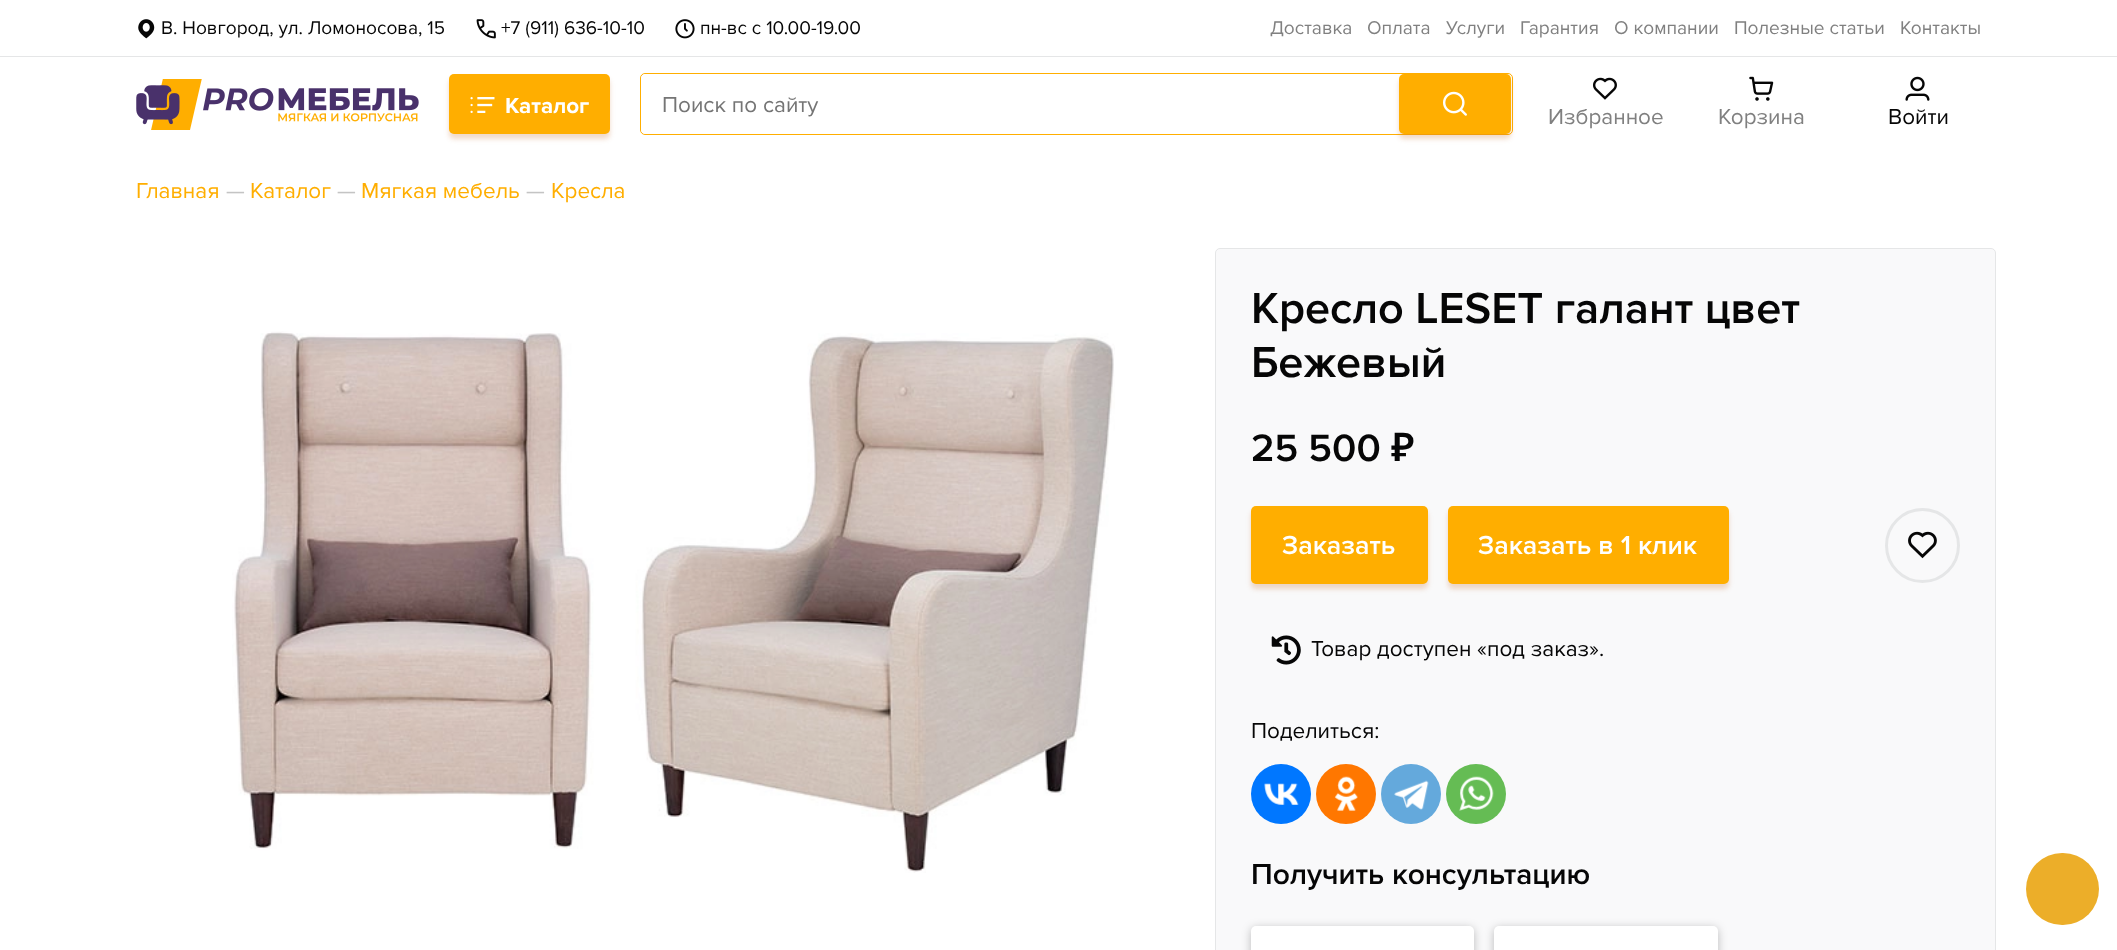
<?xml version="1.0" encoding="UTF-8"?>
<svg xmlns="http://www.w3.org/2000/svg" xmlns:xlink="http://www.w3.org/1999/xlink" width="2117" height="950">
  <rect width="100%" height="100%" fill="#ffffff" />
  <rect y="56" width="2117" height="1" fill="#e5e6e7" />
  <image x="138" y="19" width="17" height="20" xlink:href="image1.png" />
  <image x="476" y="19" width="20" height="20" xlink:href="image2.png" />
  <image x="675" y="19" width="20" height="20" xlink:href="image3.png" />
  <image x="136" y="79" width="283" height="51" xlink:href="image4.png" />
  <rect x="449" y="79" width="161" height="60" rx="5" fill="#c76a26" fill-opacity="0.25" filter="blur(2.5px)" />
  <rect x="449" y="74" width="161" height="60" rx="5" fill="#ffae00" />
  <image x="470" y="97" width="25" height="16" xlink:href="image5.png" />
  <rect x="640.5" y="73.5" width="872" height="61" rx="4.5" fill="none" stroke="#ffae00" />
  <rect x="641" y="74" width="758" height="60" rx="5" fill="#ffffff" />
  <rect x="1399" y="79" width="112" height="60" rx="5" fill="#c76a26" fill-opacity="0.25" filter="blur(2.5px)" />
  <rect x="1399" y="74" width="112" height="60" rx="5" fill="#ffae00" />
  <image x="1443" y="91" width="24" height="25" xlink:href="image6.png" />
  <image x="1593" y="77" width="24" height="23" xlink:href="image7.png" />
  <image x="1749" y="76" width="25" height="25" xlink:href="image8.png" />
  <image x="1905" y="76" width="25" height="25" xlink:href="image9.png" />
  <image x="232" y="331" width="883" height="542" xlink:href="image10.png" />
  <rect x="1215.5" y="248.5" width="780" height="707" rx="4.5" fill="#f9f9fa" stroke="#e5e6e7" />
  <rect x="1251" y="511" width="177" height="78" rx="5" fill="#c76a26" fill-opacity="0.25" filter="blur(2.5px)" />
  <rect x="1251" y="506" width="177" height="78" rx="5" fill="#ffae00" />
  <rect x="1448" y="511" width="281" height="78" rx="5" fill="#c76a26" fill-opacity="0.25" filter="blur(2.5px)" />
  <rect x="1448" y="506" width="281" height="78" rx="5" fill="#ffae00" />
  <circle cx="1922.5" cy="545.5" r="36" fill="none" stroke="#e5e6e7" stroke-width="3" />
  <image x="1908" y="531" width="29" height="28" xlink:href="image11.png" />
  <image x="1271" y="635" width="30" height="30" xlink:href="image12.png" />
  <circle cx="1281" cy="794" r="30" fill="#0077ff" />
  <image x="1264" y="783" width="35" height="22" xlink:href="image13.png" />
  <circle cx="1346" cy="794" r="30" fill="#ff7700" />
  <image x="1334" y="776" width="24" height="35" xlink:href="image14.png" />
  <circle cx="1411" cy="794" r="30" fill="#64a9dc" />
  <image x="1394" y="780" width="35" height="30" xlink:href="image15.png" />
  <circle cx="1476" cy="794" r="30" fill="#65bc54" />
  <image x="1459" y="776" width="35" height="35" xlink:href="image16.png" />
  <rect x="1251" y="928" width="223" height="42" rx="5" fill="#000000" fill-opacity="0.25" filter="blur(5px)" />
  <rect x="1251" y="926" width="223" height="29" rx="5" fill="#ffffff" />
  <rect x="1494" y="928" width="224" height="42" rx="5" fill="#000000" fill-opacity="0.25" filter="blur(5px)" />
  <rect x="1494" y="926" width="224" height="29" rx="5" fill="#ffffff" />
  <rect x="2026" y="853" width="73" height="72" rx="36" fill="#ecae29" />
  <text x="161" y="34" style="font-family: Proxima Nova; font-size: 19.1px; fill: #060606">В. Новгород, ул. Ломоносова, 15</text>
  <text x="501" y="34" style="font-family: Proxima Nova; font-size: 19.1px; fill: #060606">+7 (911) 636-10-10</text>
  <text x="700" y="34" style="font-family: Proxima Nova; font-size: 19.1px; fill: #060606">пн-вс с 10.00-19.00</text>
  <text x="1270" y="34" style="font-family: Proxima Nova; font-size: 19.1px; fill: #808080">Доставка</text>
  <text x="1367" y="34" style="font-family: Proxima Nova; font-size: 19.1px; fill: #808080">Оплата</text>
  <text x="1446" y="34" style="font-family: Proxima Nova; font-size: 19.1px; fill: #808080">Услуги</text>
  <text x="1520" y="34" style="font-family: Proxima Nova; font-size: 19.1px; fill: #808080">Гарантия</text>
  <text x="1614" y="34" style="font-family: Proxima Nova; font-size: 19.1px; fill: #808080">О компании</text>
  <text x="1734" y="34" style="font-family: Proxima Nova; font-size: 19.1px; fill: #808080">Полезные статьи</text>
  <text x="1900" y="34" style="font-family: Proxima Nova; font-size: 19.1px; fill: #808080">Контакты</text>
  <text x="505" y="113" style="font-family: Proxima Nova; font-size: 22.5px; font-weight: bold; fill: #ffffff">Каталог</text>
  <text x="662" y="112" style="font-family: Proxima Nova; font-size: 22.5px; fill: #757575">Поиск по сайту</text>
  <text x="1548" y="124" style="font-family: Proxima Nova; font-size: 22.5px; fill: #808080">Избранное</text>
  <text x="1718" y="124" style="font-family: Proxima Nova; font-size: 22.5px; fill: #808080">Корзина</text>
  <text x="1888" y="124" style="font-family: Proxima Nova; font-size: 22.5px; fill: #060606">Войти</text>
  <text x="136" y="198" style="font-family: Proxima Nova; font-size: 22.5px; fill: #ffae00">Главная</text>
  <text x="226" y="198" style="font-family: Proxima Nova; font-size: 22.5px; fill: #c4c4c4">—</text>
  <text x="250" y="198" style="font-family: Proxima Nova; font-size: 22.5px; fill: #ffae00">Каталог</text>
  <text x="337" y="198" style="font-family: Proxima Nova; font-size: 22.5px; fill: #c4c4c4">—</text>
  <text x="361" y="198" style="font-family: Proxima Nova; font-size: 22.5px; fill: #ffae00">Мягкая мебель</text>
  <text x="526" y="198" style="font-family: Proxima Nova; font-size: 22.5px; fill: #c4c4c4">—</text>
  <text x="551" y="198" style="font-family: Proxima Nova; font-size: 22.5px; fill: #ffae00">Кресла</text>
  <text x="1251" y="323" style="font-family: Proxima Nova; font-size: 45px; font-weight: 600; fill: #060606">Кресло LESET галант цвет</text>
  <text x="1251" y="377" style="font-family: Proxima Nova; font-size: 45px; font-weight: 600; fill: #060606">Бежевый</text>
  <text x="1251" y="461" style="font-family: Proxima Nova; font-size: 39.5px; font-weight: 600; fill: #060606">25 500</text>
  <text x="1391" y="461" style="font-family: Noto Sans; font-size: 39.5px; font-weight: 600; fill: #060606">₽</text>
  <text x="1282" y="554" style="font-family: Proxima Nova; font-size: 27px; font-weight: 600; fill: #ffffff">Заказать</text>
  <text x="1478" y="554" style="font-family: Proxima Nova; font-size: 27px; font-weight: 600; fill: #ffffff">Заказать в 1 клик</text>
  <text x="1311" y="656" style="font-family: Proxima Nova; font-size: 22.5px; fill: #060606">Товар доступен «под заказ».</text>
  <text x="1251" y="738" style="font-family: Proxima Nova; font-size: 22.5px; fill: #060606">Поделиться:</text>
  <text x="1251" y="884" style="font-family: Proxima Nova; font-size: 30px; font-weight: 600; fill: #060606">Получить консультацию</text>
</svg>
